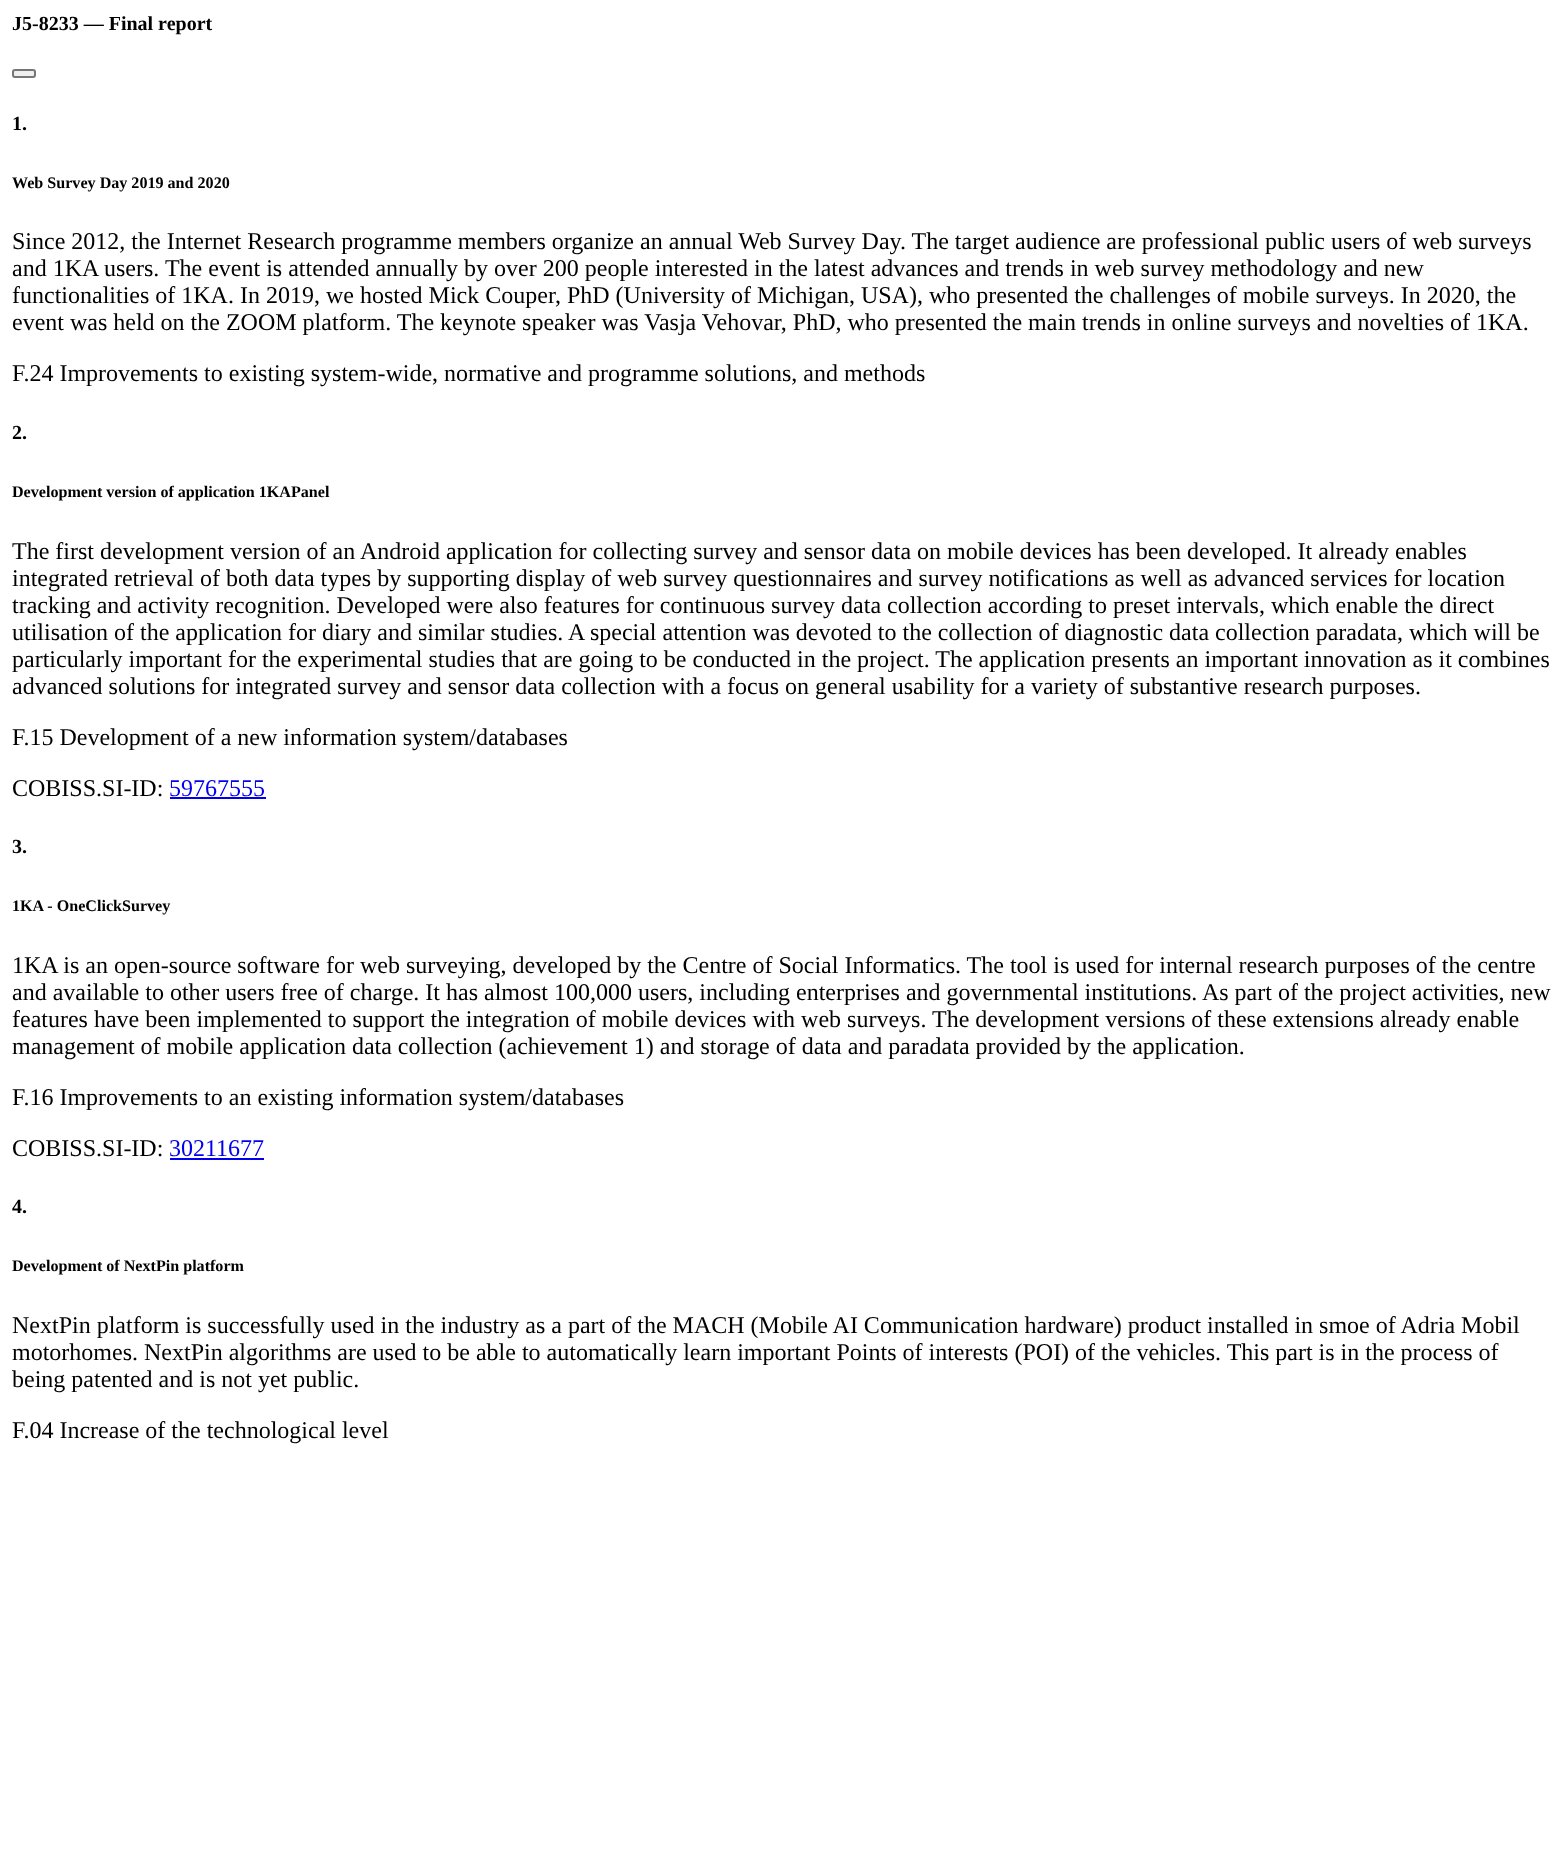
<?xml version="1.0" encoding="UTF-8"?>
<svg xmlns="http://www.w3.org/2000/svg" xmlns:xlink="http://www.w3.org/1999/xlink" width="1564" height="1854">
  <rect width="100%" height="100%" fill="#ffffff" />
  <rect x="13" y="70" width="22" height="7" rx="2" fill="#efefef" stroke="#767676" stroke-width="2" />
  <rect x="170" y="797" width="96" height="2" fill="#0000ee" />
  <rect x="170" y="1158" width="94" height="2" fill="#0000ee" />
  <text x="12" y="30" style="font-family: Liberation Serif; font-size: 20px; font-weight: bold; fill: #000000">J5-8233 — Final report</text>
  <text x="12" y="130" style="font-family: Liberation Serif; font-size: 20px; font-weight: bold; fill: #000000">1.</text>
  <text x="12" y="188" style="font-family: Liberation Serif; font-size: 16.1px; font-weight: bold; fill: #000000">Web Survey Day 2019 and 2020</text>
  <text x="12" y="249" style="font-family: Liberation Serif; font-size: 24px; fill: #000000">Since 2012, the Internet Research programme members organize an annual Web Survey Day. The target audience are professional public users of web surveys</text>
  <text x="12" y="276" style="font-family: Liberation Serif; font-size: 24px; fill: #000000">and 1KA users. The event is attended annually by over 200 people interested in the latest advances and trends in web survey methodology and new</text>
  <text x="12" y="303" style="font-family: Liberation Serif; font-size: 24px; fill: #000000">functionalities of 1KA. In 2019, we hosted Mick Couper, PhD (University of Michigan, USA), who presented the challenges of mobile surveys. In 2020, the</text>
  <text x="12" y="330" style="font-family: Liberation Serif; font-size: 24px; fill: #000000">event was held on the ZOOM platform. The keynote speaker was Vasja Vehovar, PhD, who presented the main trends in online surveys and novelties of 1KA.</text>
  <text x="12" y="381" style="font-family: Liberation Serif; font-size: 24px; fill: #000000">F.24 Improvements to existing system-wide, normative and programme solutions, and methods</text>
  <text x="12" y="439" style="font-family: Liberation Serif; font-size: 20px; font-weight: bold; fill: #000000">2.</text>
  <text x="12" y="497" style="font-family: Liberation Serif; font-size: 16.1px; font-weight: bold; fill: #000000">Development version of application 1KAPanel</text>
  <text x="12" y="559" style="font-family: Liberation Serif; font-size: 24px; fill: #000000">The first development version of an Android application for collecting survey and sensor data on mobile devices has been developed. It already enables</text>
  <text x="12" y="586" style="font-family: Liberation Serif; font-size: 24px; fill: #000000">integrated retrieval of both data types by supporting display of web survey questionnaires and survey notifications as well as advanced services for location</text>
  <text x="12" y="613" style="font-family: Liberation Serif; font-size: 24px; fill: #000000">tracking and activity recognition. Developed were also features for continuous survey data collection according to preset intervals, which enable the direct</text>
  <text x="12" y="640" style="font-family: Liberation Serif; font-size: 24px; fill: #000000">utilisation of the application for diary and similar studies. A special attention was devoted to the collection of diagnostic data collection paradata, which will be</text>
  <text x="12" y="667" style="font-family: Liberation Serif; font-size: 24px; fill: #000000">particularly important for the experimental studies that are going to be conducted in the project. The application presents an important innovation as it combines</text>
  <text x="12" y="694" style="font-family: Liberation Serif; font-size: 24px; fill: #000000">advanced solutions for integrated survey and sensor data collection with a focus on general usability for a variety of substantive research purposes.</text>
  <text x="12" y="745" style="font-family: Liberation Serif; font-size: 24px; fill: #000000">F.15 Development of a new information system/databases</text>
  <text x="12" y="796" style="font-family: Liberation Serif; font-size: 24px; fill: #000000">COBISS.SI-ID:</text>
  <text x="169" y="796" style="font-family: Liberation Serif; font-size: 24px; fill: #0000ee">59767555</text>
  <text x="12" y="853" style="font-family: Liberation Serif; font-size: 20px; font-weight: bold; fill: #000000">3.</text>
  <text x="12" y="911" style="font-family: Liberation Serif; font-size: 16.1px; font-weight: bold; fill: #000000">1KA - OneClickSurvey</text>
  <text x="12" y="973" style="font-family: Liberation Serif; font-size: 24px; fill: #000000">1KA is an open-source software for web surveying, developed by the Centre of Social Informatics. The tool is used for internal research purposes of the centre</text>
  <text x="12" y="1000" style="font-family: Liberation Serif; font-size: 24px; fill: #000000">and available to other users free of charge. It has almost 100,000 users, including enterprises and governmental institutions. As part of the project activities, new</text>
  <text x="12" y="1027" style="font-family: Liberation Serif; font-size: 24px; fill: #000000">features have been implemented to support the integration of mobile devices with web surveys. The development versions of these extensions already enable</text>
  <text x="12" y="1054" style="font-family: Liberation Serif; font-size: 24px; fill: #000000">management of mobile application data collection (achievement 1) and storage of data and paradata provided by the application.</text>
  <text x="12" y="1105" style="font-family: Liberation Serif; font-size: 24px; fill: #000000">F.16 Improvements to an existing information system/databases</text>
  <text x="12" y="1156" style="font-family: Liberation Serif; font-size: 24px; fill: #000000">COBISS.SI-ID:</text>
  <text x="169" y="1156" style="font-family: Liberation Serif; font-size: 24px; fill: #0000ee">30211677</text>
  <text x="12" y="1213" style="font-family: Liberation Serif; font-size: 20px; font-weight: bold; fill: #000000">4.</text>
  <text x="12" y="1271" style="font-family: Liberation Serif; font-size: 16.1px; font-weight: bold; fill: #000000">Development of NextPin platform</text>
  <text x="12" y="1333" style="font-family: Liberation Serif; font-size: 24px; fill: #000000">NextPin platform is successfully used in the industry as a part of the MACH (Mobile AI Communication hardware) product installed in smoe of Adria Mobil</text>
  <text x="12" y="1360" style="font-family: Liberation Serif; font-size: 24px; fill: #000000">motorhomes. NextPin algorithms are used to be able to automatically learn important Points of interests (POI) of the vehicles. This part is in the process of</text>
  <text x="12" y="1387" style="font-family: Liberation Serif; font-size: 24px; fill: #000000">being patented and is not yet public.</text>
  <text x="12" y="1438" style="font-family: Liberation Serif; font-size: 24px; fill: #000000">F.04 Increase of the technological level</text>
</svg>
